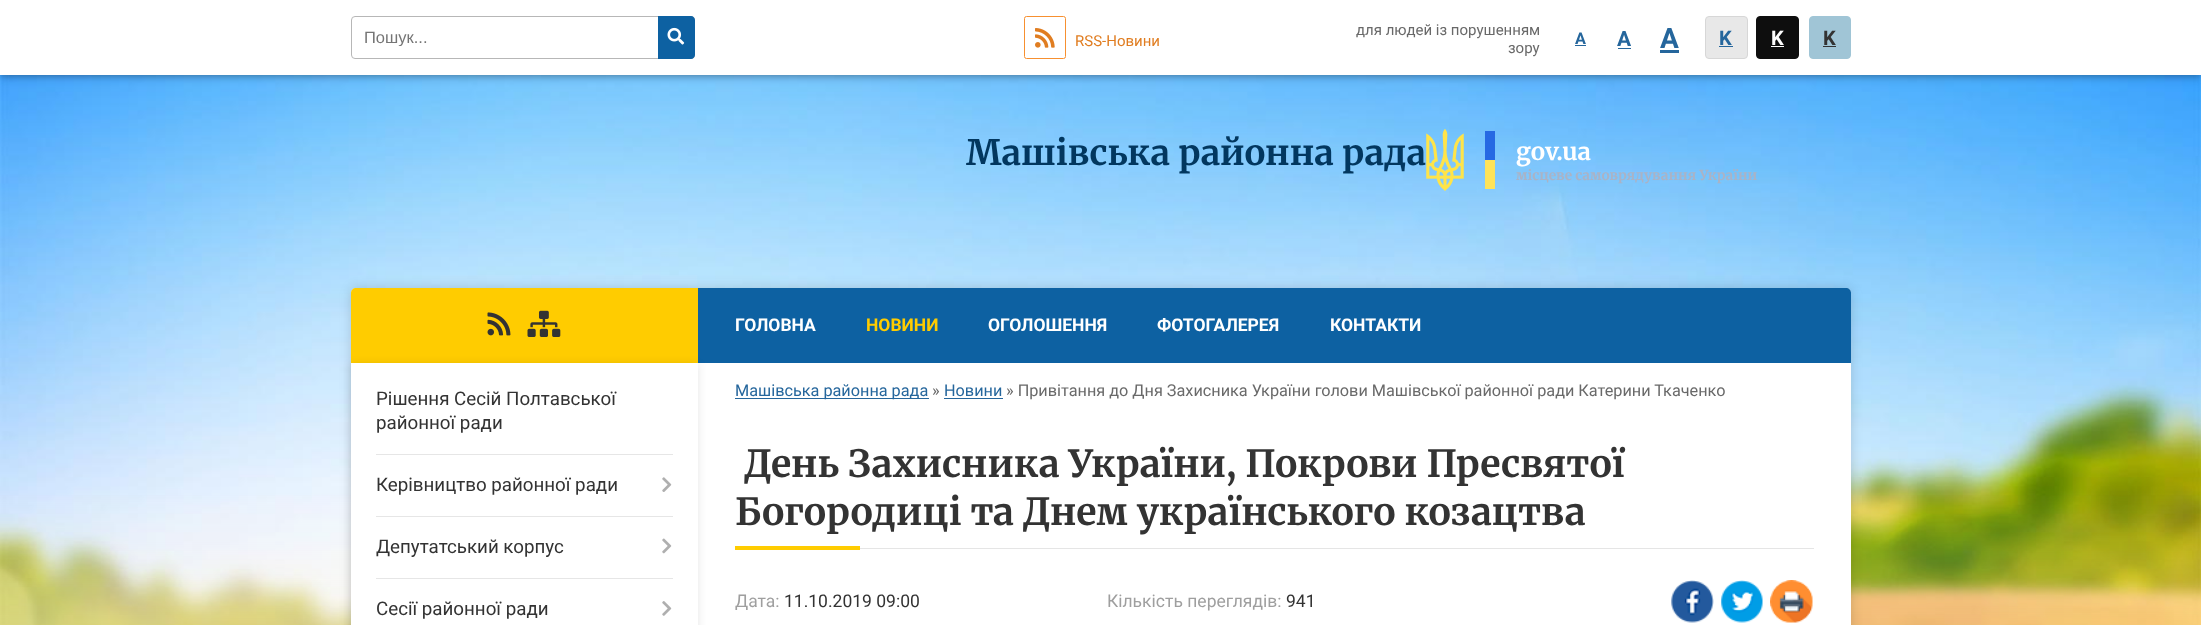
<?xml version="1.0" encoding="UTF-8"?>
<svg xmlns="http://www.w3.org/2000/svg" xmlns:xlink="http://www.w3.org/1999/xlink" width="2201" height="625">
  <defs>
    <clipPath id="clip1"><path d="M 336 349 h 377 v 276 h -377 z m 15 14 h 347 v 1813 h -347 z" clip-rule="evenodd" /></clipPath>
    <clipPath id="clip2"><rect x="365" y="28" width="279" height="18" /></clipPath>
  </defs>
  <rect width="100%" height="100%" fill="#ffffff" />
  <image x="0" y="75" width="2201" height="550" xlink:href="image1.png" />
  <rect y="1" width="2201" height="75" fill="#000000" fill-opacity="0.4" filter="blur(4.5px)" />
  <rect width="2201" height="75" fill="#ffffff" />
  <rect x="351.5" y="16.5" width="343" height="42" rx="3.5" fill="none" stroke="#b7b7b7" />
  <path d="M 658 16 h 33 c 2 0 4 2 4 4 v 35 c 0 2 -2 4 -4 4 h -33 z" fill="#0d61a2" />
  <image x="667" y="27" width="18" height="18" xlink:href="image2.png" />
  <rect x="1024.5" y="16.5" width="41" height="42" rx="2" fill="none" stroke="#f79030" />
  <image x="1035" y="28" width="20" height="20" xlink:href="image3.png" />
  <rect x="1575" y="45" width="11" height="1" fill="#25669c" />
  <rect x="1618" y="48" width="13" height="1" fill="#25669c" />
  <rect x="1660" y="50" width="19" height="3" fill="#25669c" />
  <rect x="1705.5" y="16.5" width="42" height="42" rx="3.5" fill="#e8e8e8" stroke="#d7d7d7" />
  <rect x="1719" y="46" width="14" height="1" fill="#25669c" />
  <rect x="1756.5" y="16.5" width="42" height="42" rx="3.5" fill="#0e0e0e" stroke="#0e0e0e" />
  <rect x="1771" y="46" width="13" height="1" fill="#ffffff" />
  <rect x="1809.5" y="16.5" width="41" height="42" rx="3.5" fill="#a0c5d6" stroke="#a0c5d6" />
  <rect x="1823" y="46" width="13" height="1" fill="#333333" />
  <image x="1426" y="129" width="38" height="62" xlink:href="image4.png" />
  <rect x="1485" y="131" width="10" height="29" fill="#2669e3" />
  <rect x="1485" y="160" width="10" height="29" fill="#ffe358" />
  <rect x="351" y="288" width="1500" height="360" rx="5" fill="#000000" fill-opacity="0.15" filter="blur(6px)" />
  <rect x="351" y="288" width="1500" height="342" rx="5" fill="#ffffff" />
  <path d="M 356 288 h 342 v 75 h -347 v -70 c 0 -3 2 -5 5 -5 z" fill="#ffcc00" />
  <image x="487" y="312" width="24" height="24" xlink:href="image5.png" />
  <image x="527" y="310" width="34" height="27" xlink:href="image6.png" />
  <path d="M 698 288 h 1148 c 3 0 5 2 5 5 v 70 h -1153 z" fill="#0d61a2" />
  <g clip-path="url(#clip1)">
    <rect x="351" y="364" width="347" height="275" fill="#000000" fill-opacity="0.1" filter="blur(4.5px)" />
  </g>
  <rect x="376" y="454" width="297" height="1" fill="#e6e6e6" />
  <rect x="376" y="516" width="297" height="1" fill="#e6e6e6" />
  <image x="662" y="477" width="10" height="15" xlink:href="image7.png" />
  <rect x="376" y="578" width="297" height="1" fill="#e6e6e6" />
  <image x="662" y="538" width="10" height="16" xlink:href="image8.png" />
  <image x="662" y="601" width="10" height="15" xlink:href="image9.png" />
  <rect x="735" y="398" width="194" height="1" fill="#25669c" />
  <rect x="944" y="398" width="59" height="1" fill="#25669c" />
  <rect x="860" y="548" width="954" height="1" fill="#e5e5e5" />
  <rect x="735" y="546" width="125" height="4" fill="#ffcc00" />
  <image x="1671" y="580" width="43" height="43" xlink:href="image10.png" />
  <image x="1721" y="580" width="42" height="43" xlink:href="image11.png" />
  <image x="1770" y="580" width="43" height="43" xlink:href="image12.png" />
  <g clip-path="url(#clip2)">
    <text x="364" y="43" style="font-family: Liberation Sans; font-size: 16.5px; fill: #757575">Пошук...</text>
  </g>
  <text x="1075" y="46" style="font-family: Roboto; font-size: 15px; fill: #e07d21">RSS-Новини</text>
  <text x="1356" y="35" style="font-family: Roboto; font-size: 15px; fill: #696969">для людей із порушенням</text>
  <text x="1508" y="53" style="font-family: Roboto; font-size: 15px; fill: #696969">зору</text>
  <text x="1575" y="44" style="font-family: Roboto; font-size: 16.25px; font-weight: bold; fill: #25669c">A</text>
  <text x="1617" y="46" style="font-family: Roboto; font-size: 21px; font-weight: bold; fill: #25669c">A</text>
  <text x="1660" y="48" style="font-family: Roboto; font-size: 28px; font-weight: bold; fill: #25669c">A</text>
  <text x="1719" y="45" style="font-family: Roboto; font-size: 20px; font-weight: bold; fill: #25669c">K</text>
  <text x="1771" y="45" style="font-family: Roboto; font-size: 20px; font-weight: bold; fill: #ffffff">K</text>
  <text x="1823" y="45" style="font-family: Roboto; font-size: 20px; font-weight: bold; fill: #333333">K</text>
  <text x="966" y="165" style="font-family: Merriweather; font-size: 35px; font-weight: 300; fill: #02375f">Машівська районна рада</text>
  <text x="1516" y="160" style="font-family: Merriweather; font-size: 24px; font-weight: 300; fill: #ffffff">gov.ua</text>
  <text x="1516" y="180" style="font-family: Merriweather; font-size: 13.75px; font-weight: 300; fill: #aab3c6">місцеве самоврядування України</text>
  <text x="376" y="405" style="font-family: Roboto; font-size: 18.75px; fill: #333333">Рішення Сесій Полтавської</text>
  <text x="376" y="429" style="font-family: Roboto; font-size: 18.75px; fill: #333333">районної ради</text>
  <text x="376" y="491" style="font-family: Roboto; font-size: 18.75px; fill: #333333">Керівництво районної ради</text>
  <text x="376" y="553" style="font-family: Roboto; font-size: 18.75px; fill: #333333">Депутатський корпус</text>
  <text x="376" y="615" style="font-family: Roboto; font-size: 18.75px; fill: #333333">Сесії районної ради</text>
  <text x="735" y="331" style="font-family: Roboto; font-size: 17.5px; font-weight: bold; fill: #ffffff">ГОЛОВНА</text>
  <text x="866" y="331" style="font-family: Roboto; font-size: 17.5px; font-weight: bold; fill: #ffcc00">НОВИНИ</text>
  <text x="988" y="331" style="font-family: Roboto; font-size: 17.5px; font-weight: bold; fill: #ffffff">ОГОЛОШЕННЯ</text>
  <text x="1157" y="331" style="font-family: Roboto; font-size: 17.5px; font-weight: bold; fill: #ffffff">ФОТОГАЛЕРЕЯ</text>
  <text x="1330" y="331" style="font-family: Roboto; font-size: 17.5px; font-weight: bold; fill: #ffffff">КОНТАКТИ</text>
  <text x="735" y="396" style="font-family: Roboto; font-size: 16.25px; fill: #25669c">Машівська районна рада</text>
  <text x="932" y="396" style="font-family: Roboto; font-size: 16.25px; fill: #696969">»</text>
  <text x="944" y="396" style="font-family: Roboto; font-size: 16.25px; fill: #25669c">Новини</text>
  <text x="1006" y="396" style="font-family: Roboto; font-size: 16.25px; fill: #696969">» Привітання до Дня Захисника України голови Машівської районної ради Катерини Ткаченко</text>
  <text x="744" y="477" style="font-family: Merriweather; font-size: 37.5px; font-weight: 300; fill: #333333">День Захисника України, Покрови Пресвятої</text>
  <text x="735" y="525" style="font-family: Merriweather; font-size: 37.5px; font-weight: 300; fill: #333333">Богородиці та Днем українського козацтва</text>
  <text x="735" y="607" style="font-family: Roboto; font-size: 17.5px; fill: #9f9f9f">Дата:</text>
  <text x="784" y="607" style="font-family: Roboto; font-size: 17.5px; fill: #333333">11.10.2019 09:00</text>
  <text x="1107" y="607" style="font-family: Roboto; font-size: 17.5px; fill: #9f9f9f">Кількість переглядів:</text>
  <text x="1286" y="607" style="font-family: Roboto; font-size: 17.5px; fill: #333333">941</text>
</svg>
